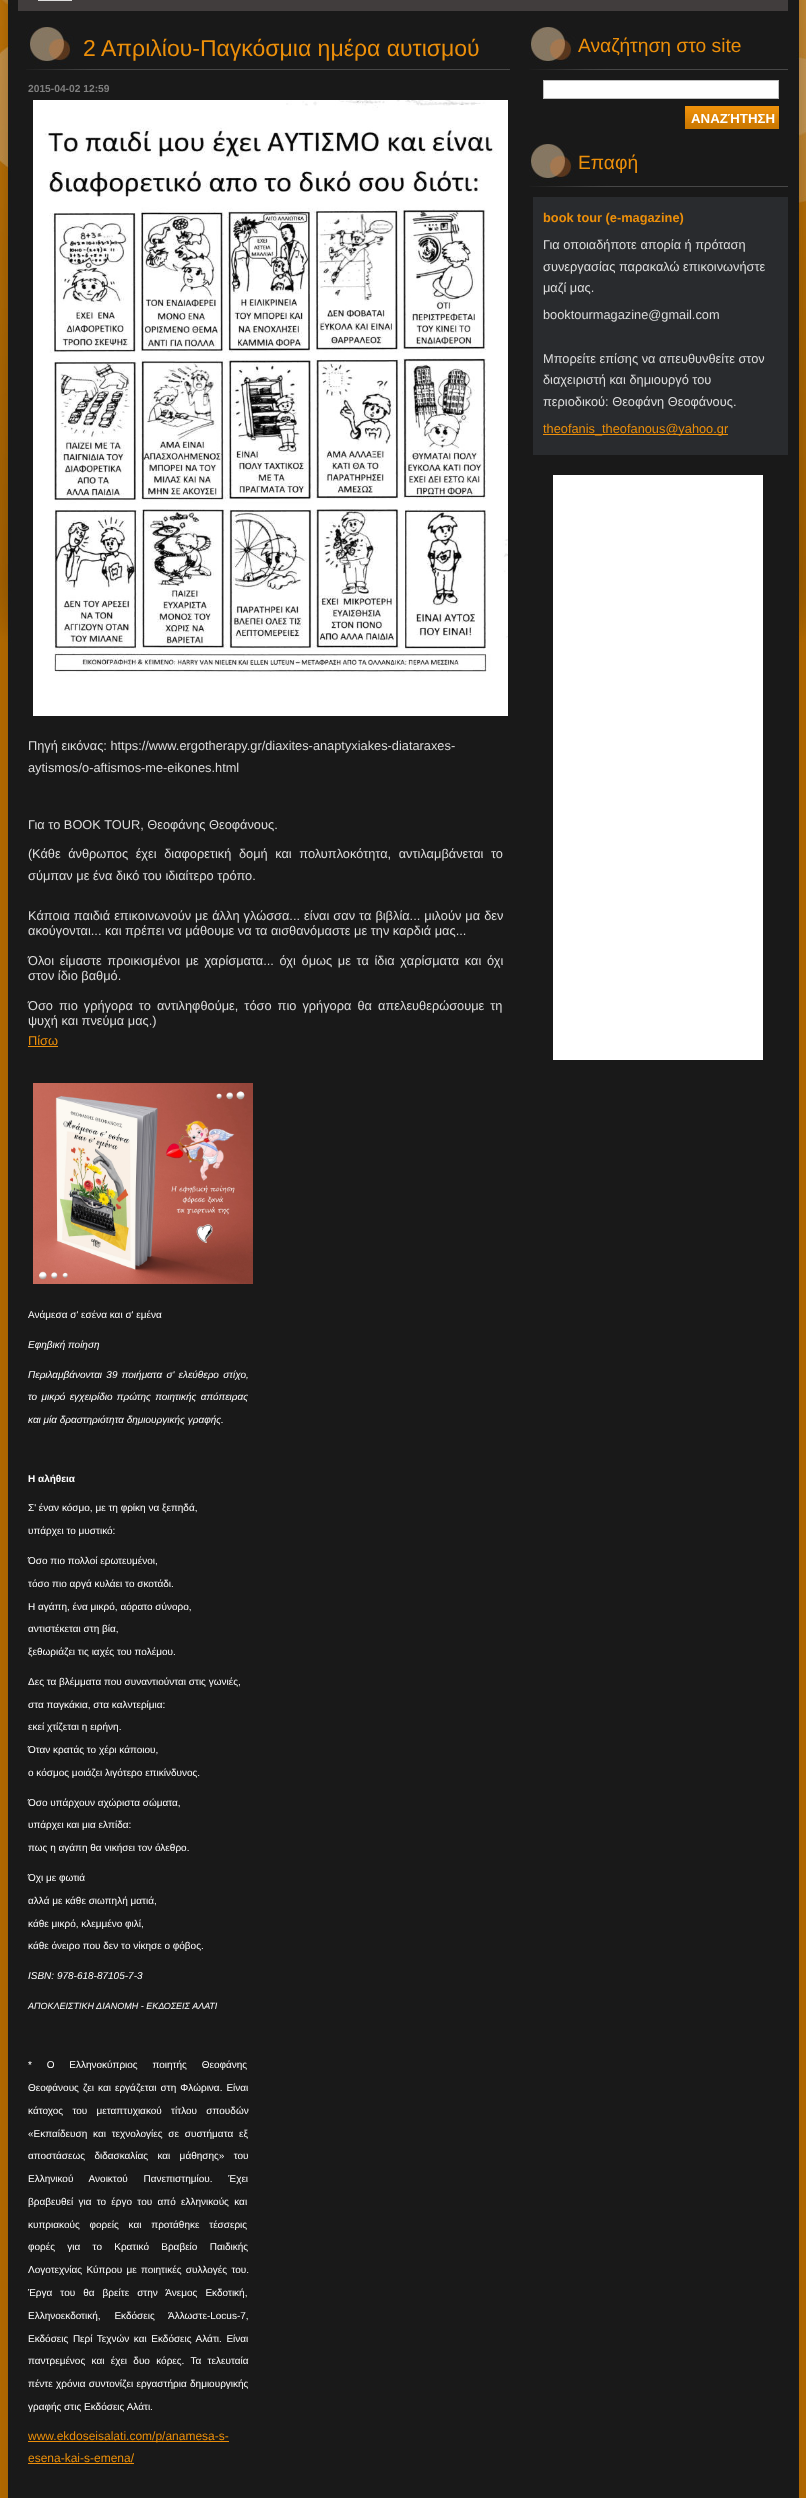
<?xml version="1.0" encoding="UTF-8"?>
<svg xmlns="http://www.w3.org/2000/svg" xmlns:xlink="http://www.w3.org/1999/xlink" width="806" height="2498">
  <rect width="100%" height="100%" fill="#ffffff" />
  <image x="0" y="642" width="806" height="1856" xlink:href="image1.png" />
  <image x="0" y="0" width="806" height="642" xlink:href="image2.png" />
  <rect x="18" width="770" height="11" fill="#413d3d" />
  <rect x="38" width="34" height="1" fill="#dddddd" />
  <image x="26" y="27" width="484" height="43" xlink:href="image3.png" />
  <image x="33" y="100" width="475" height="616" xlink:href="image4.png" />
  <rect x="28" y="1046" width="30" height="1" fill="#ec8f0a" />
  <image x="33" y="1083" width="220" height="201" xlink:href="image5.png" />
  <rect x="28" y="2441" width="201" height="1" fill="#ec8f0a" />
  <rect x="28" y="2463" width="106" height="1" fill="#ec8f0a" />
  <image x="529" y="27" width="259" height="43" xlink:href="image6.png" />
  <rect x="543.5" y="80.5" width="235" height="18" fill="#ffffff" stroke="#c1c1c1" />
  <image x="685" y="106" width="94" height="23" xlink:href="image7.png" />
  <image x="529" y="144" width="259" height="43" xlink:href="image6.png" />
  <rect x="533" y="197" width="255" height="258" fill="#292b2e" />
  <rect x="543" y="434" width="185" height="1" fill="#ec8f0a" />
  <rect x="553" y="475" width="210" height="585" fill="#ffffff" />
  <text x="83" y="56" style="font-family: Liberation Sans; font-size: 23px; fill: #ec8f0a">2 Απριλίου-Παγκόσμια ημέρα αυτισμού</text>
  <text x="28" y="92" style="font-family: Liberation Sans; font-size: 10.25px; font-weight: bold; fill: #7f7f7f">2015-04-02 12:59</text>
  <text x="28" y="750" style="font-family: Liberation Sans; font-size: 12.8px; fill: #dddddd">Πηγή εικόνας: https://www.ergotherapy.gr/diaxites-anaptyxiakes-diataraxes-</text>
  <text x="28" y="772" style="font-family: Liberation Sans; font-size: 12.8px; fill: #dddddd">aytismos/o-aftismos-me-eikones.html</text>
  <text x="28" y="829" style="font-family: Liberation Sans; font-size: 12.8px; fill: #dddddd">Για το BOOK TOUR, Θεοφάνης Θεοφάνους.</text>
  <text x="28" y="858" style="font-family: Liberation Sans; font-size: 12.8px; fill: #dddddd">(</text>
  <text x="32" y="858" word-spacing="4" style="font-family: Liberation Sans; font-size: 12.8px; fill: #dddddd">Κάθε άνθρωπος έχει διαφορετική δομή και πολυπλοκότητα, αντιλαμβάνεται το</text>
  <text x="28" y="880" style="font-family: Liberation Sans; font-size: 12.8px; fill: #dddddd">σύμπαν με ένα δικό του ιδιαίτερο τρόπο.</text>
  <text x="28" y="920" word-spacing="0.5" style="font-family: Liberation Sans; font-size: 12.8px; fill: #dddddd">Κάποια παιδιά επικοινωνούν με άλλη γλώσσα... είναι σαν τα βιβλία... μιλούν μα δεν</text>
  <text x="28" y="935" style="font-family: Liberation Sans; font-size: 12.8px; fill: #dddddd">ακούγονται... και πρέπει να μάθουμε να τα αισθανόμαστε με την καρδιά μας...</text>
  <text x="28" y="965" word-spacing="2.1" style="font-family: Liberation Sans; font-size: 12.8px; fill: #dddddd">Όλοι είμαστε προικισμένοι με χαρίσματα... όχι όμως με τα ίδια χαρίσματα και όχι</text>
  <text x="28" y="980" style="font-family: Liberation Sans; font-size: 12.8px; fill: #dddddd">στον ίδιο βαθμό.</text>
  <text x="28" y="1010" word-spacing="2.5" style="font-family: Liberation Sans; font-size: 12.8px; fill: #dddddd">Όσο πιο γρήγορα το αντιληφθούμε, τόσο πιο γρήγορα θα απελευθερώσουμε τη</text>
  <text x="28" y="1025" style="font-family: Liberation Sans; font-size: 12.8px; fill: #dddddd">ψυχή και πνεύμα μας.)</text>
  <text x="28" y="1045" style="font-family: Liberation Sans; font-size: 12.8px; fill: #ec8f0a">Πίσω</text>
  <text x="28" y="1318" style="font-family: Liberation Sans; font-size: 10px; fill: #ffffff">Ανάμεσα σ' εσένα και σ' εμένα</text>
  <text x="28" y="1348" style="font-family: Liberation Sans; font-size: 10px; font-style: italic; fill: #ffffff">Εφηβική ποίηση</text>
  <text x="28" y="1378" word-spacing="1.5" style="font-family: Liberation Sans; font-size: 10px; font-style: italic; fill: #ffffff">Περιλαμβάνονται 39 ποιήματα σ' ελεύθερο στίχο,</text>
  <text x="28" y="1400" word-spacing="1.5" style="font-family: Liberation Sans; font-size: 10px; font-style: italic; fill: #ffffff">το μικρό εγχειρίδιο πρώτης ποιητικής απόπειρας</text>
  <text x="28" y="1423" style="font-family: Liberation Sans; font-size: 10px; font-style: italic; fill: #ffffff">και μία δραστηριότητα δημιουργικής γραφής.</text>
  <text x="28" y="1482" style="font-family: Liberation Sans; font-size: 10px; font-weight: bold; fill: #ffffff">Η αλήθεια</text>
  <text x="28" y="1511" style="font-family: Liberation Sans; font-size: 10px; fill: #ffffff">Σ' έναν κόσμο, με τη φρίκη να ξεπηδά,</text>
  <text x="28" y="1534" style="font-family: Liberation Sans; font-size: 10px; fill: #ffffff">υπάρχει το μυστικό:</text>
  <text x="28" y="1564" style="font-family: Liberation Sans; font-size: 10px; fill: #ffffff">Όσο πιο πολλοί ερωτευμένοι,</text>
  <text x="28" y="1587" style="font-family: Liberation Sans; font-size: 10px; fill: #ffffff">τόσο πιο αργά κυλάει το σκοτάδι.</text>
  <text x="28" y="1610" style="font-family: Liberation Sans; font-size: 10px; fill: #ffffff">Η αγάπη, ένα μικρό, αόρατο σύνορο,</text>
  <text x="28" y="1632" style="font-family: Liberation Sans; font-size: 10px; fill: #ffffff">αντιστέκεται στη βία,</text>
  <text x="28" y="1655" style="font-family: Liberation Sans; font-size: 10px; fill: #ffffff">ξεθωριάζει τις ιαχές του πολέμου.</text>
  <text x="28" y="1685" style="font-family: Liberation Sans; font-size: 10px; fill: #ffffff">Δες τα βλέμματα που συναντιούνται στις γωνιές,</text>
  <text x="28" y="1708" style="font-family: Liberation Sans; font-size: 10px; fill: #ffffff">στα παγκάκια, στα καλντερίμια:</text>
  <text x="28" y="1730" style="font-family: Liberation Sans; font-size: 10px; fill: #ffffff">εκεί χτίζεται η ειρήνη.</text>
  <text x="28" y="1753" style="font-family: Liberation Sans; font-size: 10px; fill: #ffffff">Όταν κρατάς το χέρι κάποιου,</text>
  <text x="28" y="1776" style="font-family: Liberation Sans; font-size: 10px; fill: #ffffff">ο κόσμος μοιάζει λιγότερο επικίνδυνος.</text>
  <text x="28" y="1806" style="font-family: Liberation Sans; font-size: 10px; fill: #ffffff">Όσο υπάρχουν αχώριστα σώματα,</text>
  <text x="28" y="1828" style="font-family: Liberation Sans; font-size: 10px; fill: #ffffff">υπάρχει και μια ελπίδα:</text>
  <text x="28" y="1851" style="font-family: Liberation Sans; font-size: 10px; fill: #ffffff">πως η αγάπη θα νικήσει τον όλεθρο.</text>
  <text x="28" y="1881" style="font-family: Liberation Sans; font-size: 10px; fill: #ffffff">Όχι με φωτιά</text>
  <text x="28" y="1904" style="font-family: Liberation Sans; font-size: 10px; fill: #ffffff">αλλά με κάθε σιωπηλή ματιά,</text>
  <text x="28" y="1927" style="font-family: Liberation Sans; font-size: 10px; fill: #ffffff">κάθε μικρό, κλεμμένο φιλί,</text>
  <text x="28" y="1949" style="font-family: Liberation Sans; font-size: 10px; fill: #ffffff">κάθε όνειρο που δεν το νίκησε ο φόβος.</text>
  <text x="28" y="1979" style="font-family: Liberation Sans; font-size: 10px; font-style: italic; fill: #ffffff">ISBN: 978-618-87105-7-3</text>
  <text x="28" y="2009" style="font-family: Liberation Sans; font-size: 9px; font-style: italic; fill: #ffffff">ΑΠΟΚΛΕΙΣΤΙΚΗ ΔΙΑΝΟΜΗ - ΕΚΔΟΣΕΙΣ ΑΛΑΤΙ</text>
  <text x="28" y="2068" word-spacing="12" style="font-family: Liberation Sans; font-size: 10px; fill: #ffffff">* O Eλληνοκύπριος ποιητής Θεοφάνης</text>
  <text x="28" y="2091" word-spacing="1.25" style="font-family: Liberation Sans; font-size: 10px; fill: #ffffff">Θεοφάνους ζει και εργάζεται στη Φλώρινα. Είναι</text>
  <text x="28" y="2114" word-spacing="6.5" style="font-family: Liberation Sans; font-size: 10px; fill: #ffffff">κάτοχος του μεταπτυχιακού τίτλου σπουδών</text>
  <text x="28" y="2137" word-spacing="3" style="font-family: Liberation Sans; font-size: 10px; fill: #ffffff">«Εκπαίδευση και τεχνολογίες σε συστήματα εξ</text>
  <text x="28" y="2159" word-spacing="6.5" style="font-family: Liberation Sans; font-size: 10px; fill: #ffffff">αποστάσεως διδασκαλίας και μάθησης» του</text>
  <text x="28" y="2182" word-spacing="13" style="font-family: Liberation Sans; font-size: 10px; fill: #ffffff">Ελληνικού Ανοικτού Πανεπιστημίου. Έχει</text>
  <text x="28" y="2205" word-spacing="2.5" style="font-family: Liberation Sans; font-size: 10px; fill: #ffffff">βραβευθεί για το έργο του από ελληνικούς και</text>
  <text x="28" y="2228" word-spacing="7" style="font-family: Liberation Sans; font-size: 10px; fill: #ffffff">κυπριακούς φορείς και προτάθηκε τέσσερις</text>
  <text x="28" y="2250" word-spacing="9.5" style="font-family: Liberation Sans; font-size: 10px; fill: #ffffff">φορές για το Κρατικό Βραβείο Παιδικής</text>
  <text x="28" y="2273" word-spacing="1.5" style="font-family: Liberation Sans; font-size: 10px; fill: #ffffff">Λογοτεχνίας Κύπρου με ποιητικές συλλογές του.</text>
  <text x="28" y="2296" word-spacing="5.25" style="font-family: Liberation Sans; font-size: 10px; fill: #ffffff">Έργα του θα βρείτε στην Άνεμος Εκδοτική,</text>
  <text x="28" y="2319" word-spacing="11" style="font-family: Liberation Sans; font-size: 10px; fill: #ffffff">Ελληνοεκδοτική, Εκδόσεις Άλλωστε-Locus-7,</text>
  <text x="28" y="2342" word-spacing="1.75" style="font-family: Liberation Sans; font-size: 10px; fill: #ffffff">Εκδόσεις Περί Τεχνών και Εκδόσεις Αλάτι. Είναι</text>
  <text x="28" y="2364" word-spacing="3.5" style="font-family: Liberation Sans; font-size: 10px; fill: #ffffff">παντρεμένος και έχει δυο κόρες. Τα τελευταία</text>
  <text x="28" y="2387" word-spacing="0.5" style="font-family: Liberation Sans; font-size: 10px; fill: #ffffff">πέντε χρόνια συντονίζει εργαστήρια δημιουργικής</text>
  <text x="28" y="2410" style="font-family: Liberation Sans; font-size: 10px; fill: #ffffff">γραφής στις Εκδόσεις Αλάτι.</text>
  <text x="28" y="2440" style="font-family: Liberation Sans; font-size: 12px; fill: #ec8f0a">www.ekdoseisalati.com/p/anamesa-s-</text>
  <text x="28" y="2462" style="font-family: Liberation Sans; font-size: 12px; fill: #ec8f0a">esena-kai-s-emena/</text>
  <text x="578" y="52" style="font-family: Liberation Sans; font-size: 19.25px; fill: #ec8f0a">Αναζήτηση στο site</text>
  <text x="691" y="123" style="font-family: Liberation Sans; font-size: 13.25px; font-weight: bold; fill: #ffffff">ΑΝΑΖΉΤΗΣΗ</text>
  <text x="578" y="169" style="font-family: Liberation Sans; font-size: 19.25px; fill: #ec8f0a">Επαφή</text>
  <text x="543" y="222" style="font-family: Liberation Sans; font-size: 12.8px; font-weight: bold; fill: #ec8f0a">book tour (e-magazine)</text>
  <text x="543" y="249" style="font-family: Liberation Sans; font-size: 12.8px; fill: #dddddd">Για οποιαδήποτε απορία ή πρόταση</text>
  <text x="543" y="271" style="font-family: Liberation Sans; font-size: 12.8px; fill: #dddddd">συνεργασίας παρακαλώ επικοινωνήστε</text>
  <text x="543" y="292" style="font-family: Liberation Sans; font-size: 12.8px; fill: #dddddd">μαζί μας.</text>
  <text x="543" y="319" style="font-family: Liberation Sans; font-size: 12.8px; fill: #dddddd">booktourmagazine@gmail.com</text>
  <text x="543" y="363" style="font-family: Liberation Sans; font-size: 12.8px; fill: #dddddd">Μπορείτε επίσης να απευθυνθείτε στον</text>
  <text x="543" y="384" style="font-family: Liberation Sans; font-size: 12.8px; fill: #dddddd">διαχειριστή και δημιουργό του</text>
  <text x="543" y="406" style="font-family: Liberation Sans; font-size: 12.8px; fill: #dddddd">περιοδικού: Θεοφάνη Θεοφάνους.</text>
  <text x="543" y="433" style="font-family: Liberation Sans; font-size: 12.8px; fill: #ec8f0a">theofanis_theofanous@yahoo.gr</text>
</svg>
